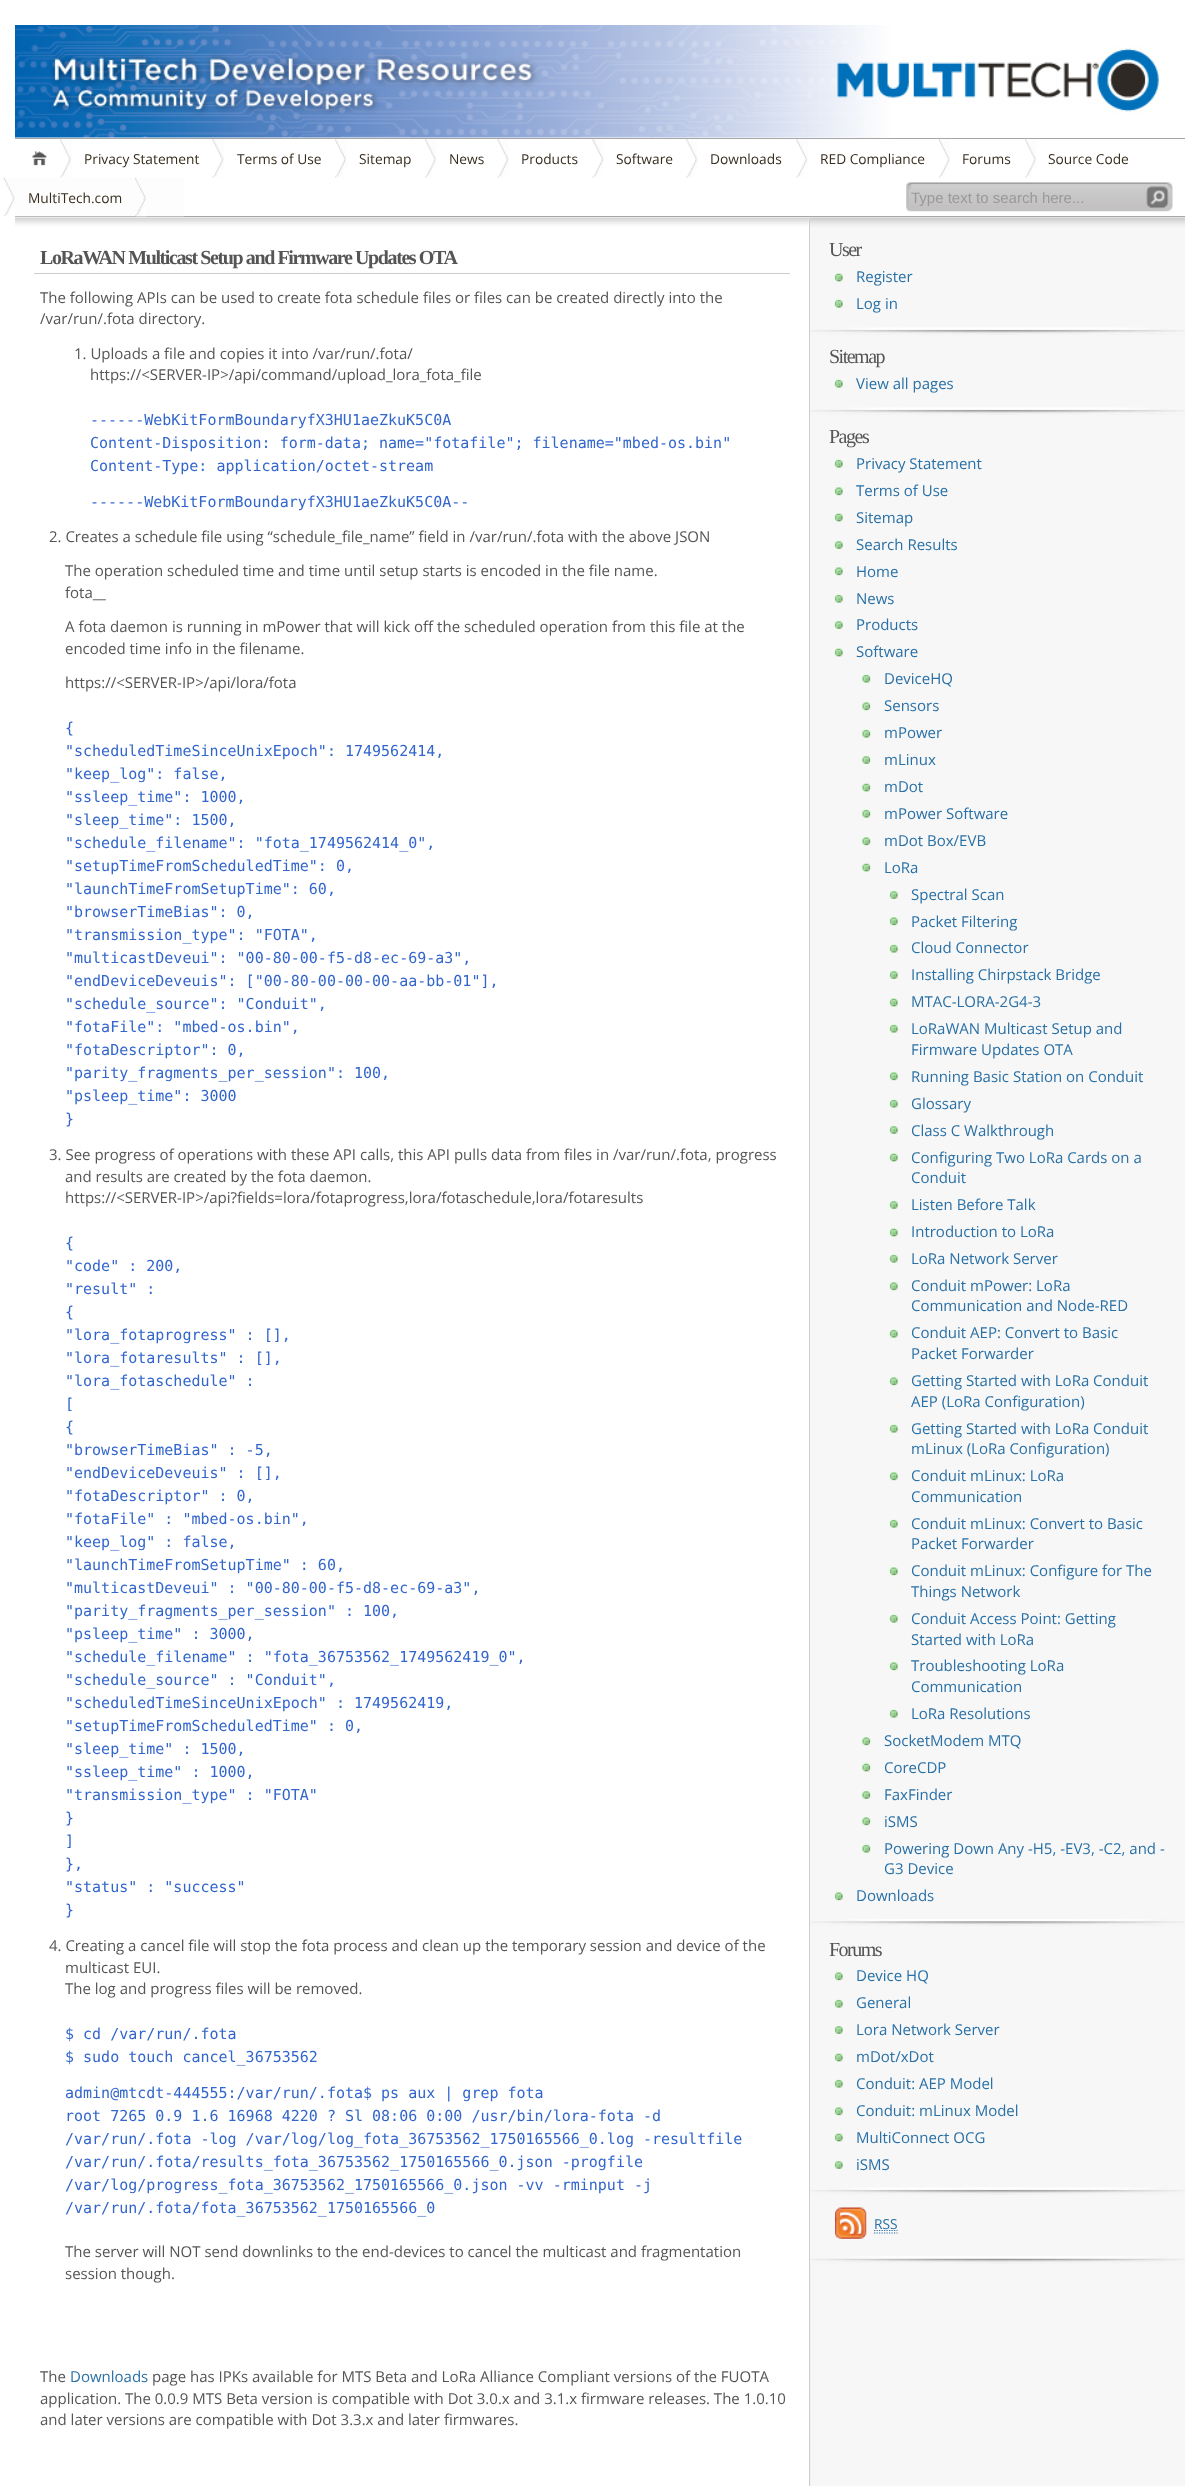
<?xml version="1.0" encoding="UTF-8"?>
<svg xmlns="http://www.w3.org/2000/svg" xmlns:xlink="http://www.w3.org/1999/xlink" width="1200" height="2486">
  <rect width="100%" height="100%" fill="#ffffff" />
  <image x="15" y="25" width="1144" height="113" xlink:href="image1.png" />
  <rect x="15" y="138" width="1170" height="1" fill="#a6a6a6" />
  <rect x="15" y="216" width="1170" height="1" fill="#a6a6a6" />
  <image x="32" y="151" width="15" height="15" xlink:href="image2.png" />
  <image x="60" y="139" width="12" height="39" xlink:href="image3.png" />
  <image x="212" y="139" width="12" height="39" xlink:href="image4.png" />
  <image x="335" y="139" width="12" height="39" xlink:href="image5.png" />
  <image x="425" y="139" width="12" height="39" xlink:href="image6.png" />
  <image x="497" y="139" width="12" height="39" xlink:href="image7.png" />
  <image x="592" y="139" width="12" height="39" xlink:href="image8.png" />
  <image x="686" y="139" width="12" height="39" xlink:href="image9.png" />
  <image x="796" y="139" width="12" height="39" xlink:href="image10.png" />
  <image x="938" y="139" width="12" height="39" xlink:href="image11.png" />
  <image x="1025" y="139" width="12" height="39" xlink:href="image12.png" />
  <image x="3" y="177" width="144" height="40" xlink:href="image13.png" />
  <image x="135" y="177" width="49" height="40" xlink:href="image14.png" />
  <image x="906" y="182" width="267" height="30" xlink:href="image15.png" />
  <image x="808" y="217" width="377" height="2269" xlink:href="image16.png" />
  <rect x="808" y="218" width="1" height="2268" fill="#ffffff" />
  <image x="15" y="217" width="794" height="9" xlink:href="image17.png" />
  <rect x="34" y="273" width="756" height="1" fill="#cccccc" />
  <rect x="810" y="227" width="1" height="2037" fill="#f7f7f7" />
  <image x="810" y="217" width="375" height="10" xlink:href="image18.png" />
  <image x="810" y="327" width="375" height="8" xlink:href="image19.png" />
  <image x="834" y="273" width="9" height="9" xlink:href="image20.png" />
  <image x="834" y="299" width="9" height="9" xlink:href="image21.png" />
  <image x="810" y="407" width="375" height="8" xlink:href="image19.png" />
  <image x="834" y="379" width="9" height="9" xlink:href="image22.png" />
  <image x="810" y="1919" width="375" height="7" xlink:href="image23.png" />
  <image x="834" y="459" width="9" height="9" xlink:href="image22.png" />
  <image x="834" y="487" width="9" height="9" xlink:href="image24.png" />
  <image x="834" y="513" width="9" height="9" xlink:href="image20.png" />
  <image x="834" y="541" width="9" height="8" xlink:href="image25.png" />
  <image x="834" y="567" width="9" height="9" xlink:href="image24.png" />
  <image x="834" y="594" width="9" height="9" xlink:href="image22.png" />
  <image x="834" y="621" width="9" height="8" xlink:href="image25.png" />
  <image x="834" y="648" width="9" height="9" xlink:href="image20.png" />
  <image x="862" y="674" width="9" height="9" xlink:href="image26.png" />
  <image x="862" y="702" width="9" height="9" xlink:href="image27.png" />
  <image x="862" y="729" width="9" height="9" xlink:href="image26.png" />
  <image x="862" y="756" width="9" height="8" xlink:href="image28.png" />
  <image x="862" y="783" width="9" height="9" xlink:href="image29.png" />
  <image x="862" y="809" width="9" height="9" xlink:href="image26.png" />
  <image x="862" y="837" width="9" height="9" xlink:href="image27.png" />
  <image x="862" y="863" width="9" height="9" xlink:href="image30.png" />
  <image x="889" y="891" width="9" height="8" xlink:href="image25.png" />
  <image x="889" y="917" width="9" height="9" xlink:href="image24.png" />
  <image x="889" y="944" width="9" height="9" xlink:href="image22.png" />
  <image x="889" y="971" width="9" height="8" xlink:href="image25.png" />
  <image x="889" y="998" width="9" height="9" xlink:href="image20.png" />
  <image x="889" y="1024" width="9" height="9" xlink:href="image22.png" />
  <image x="889" y="1072" width="9" height="9" xlink:href="image24.png" />
  <image x="889" y="1099" width="9" height="9" xlink:href="image22.png" />
  <image x="889" y="1126" width="9" height="8" xlink:href="image25.png" />
  <image x="889" y="1153" width="9" height="9" xlink:href="image20.png" />
  <image x="889" y="1201" width="9" height="8" xlink:href="image25.png" />
  <image x="889" y="1228" width="9" height="9" xlink:href="image20.png" />
  <image x="889" y="1254" width="9" height="9" xlink:href="image22.png" />
  <image x="889" y="1282" width="9" height="9" xlink:href="image24.png" />
  <image x="889" y="1329" width="9" height="9" xlink:href="image22.png" />
  <image x="889" y="1377" width="9" height="9" xlink:href="image24.png" />
  <image x="889" y="1424" width="9" height="9" xlink:href="image22.png" />
  <image x="889" y="1472" width="9" height="9" xlink:href="image24.png" />
  <image x="889" y="1519" width="9" height="9" xlink:href="image22.png" />
  <image x="889" y="1567" width="9" height="9" xlink:href="image31.png" />
  <image x="889" y="1614" width="9" height="9" xlink:href="image22.png" />
  <image x="889" y="1662" width="9" height="9" xlink:href="image24.png" />
  <image x="889" y="1709" width="9" height="9" xlink:href="image22.png" />
  <image x="862" y="1737" width="9" height="9" xlink:href="image27.png" />
  <image x="862" y="1763" width="9" height="9" xlink:href="image30.png" />
  <image x="862" y="1791" width="9" height="8" xlink:href="image28.png" />
  <image x="862" y="1817" width="9" height="9" xlink:href="image27.png" />
  <image x="862" y="1844" width="9" height="9" xlink:href="image26.png" />
  <image x="834" y="1892" width="9" height="9" xlink:href="image24.png" />
  <image x="810" y="2187" width="375" height="8" xlink:href="image19.png" />
  <image x="834" y="1972" width="9" height="9" xlink:href="image24.png" />
  <image x="834" y="1999" width="9" height="9" xlink:href="image22.png" />
  <image x="834" y="2026" width="9" height="8" xlink:href="image25.png" />
  <image x="834" y="2053" width="9" height="9" xlink:href="image32.png" />
  <image x="834" y="2079" width="9" height="9" xlink:href="image22.png" />
  <image x="834" y="2107" width="9" height="9" xlink:href="image24.png" />
  <image x="834" y="2133" width="9" height="9" xlink:href="image20.png" />
  <image x="834" y="2161" width="9" height="8" xlink:href="image25.png" />
  <image x="810" y="2256" width="375" height="8" xlink:href="image33.png" />
  <image x="835" y="2207" width="32" height="32" xlink:href="image34.png" />
  <path d="M 874 2233 h 23.5 m -23.5 -2.5 h 23.5" fill="none" stroke="#2970a6" stroke-width="1.2" stroke-dasharray="1.25 1.25" />
  <text x="84" y="164" style="font-family: Open Sans; font-size: 13.75px; fill: #382e1f">Privacy Statement</text>
  <text x="237" y="164" style="font-family: Open Sans; font-size: 13.75px; fill: #382e1f">Terms of Use</text>
  <text x="359" y="164" style="font-family: Open Sans; font-size: 13.75px; fill: #382e1f">Sitemap</text>
  <text x="449" y="164" style="font-family: Open Sans; font-size: 13.75px; fill: #382e1f">News</text>
  <text x="521" y="164" style="font-family: Open Sans; font-size: 13.75px; fill: #382e1f">Products</text>
  <text x="616" y="164" style="font-family: Open Sans; font-size: 13.75px; fill: #382e1f">Software</text>
  <text x="710" y="164" style="font-family: Open Sans; font-size: 13.75px; fill: #382e1f">Downloads</text>
  <text x="820" y="164" style="font-family: Open Sans; font-size: 13.75px; fill: #382e1f">RED Compliance</text>
  <text x="962" y="164" style="font-family: Open Sans; font-size: 13.75px; fill: #382e1f">Forums</text>
  <text x="1048" y="164" style="font-family: Open Sans; font-size: 13.75px; fill: #382e1f">Source Code</text>
  <text x="28" y="203" style="font-family: Open Sans; font-size: 13.75px; fill: #382e1f">MultiTech.com</text>
  <text x="911" y="203" style="font-family: Liberation Sans; font-size: 15px; fill: #999999">Type text to search here...</text>
  <text x="40" y="264" style="font-family: Liberation Serif; font-size: 20px; font-weight: bold; letter-spacing: -1.4px; fill: #555555">LoRaWAN Multicast Setup and Firmware Updates OTA</text>
  <text x="40" y="303" style="font-family: Open Sans; font-size: 15px; fill: #555555">The following APIs can be used to create fota schedule files or files can be created directly into the</text>
  <text x="40" y="324" style="font-family: Open Sans; font-size: 15px; fill: #555555">/var/run/.fota directory.</text>
  <text x="74" y="359" style="font-family: Open Sans; font-size: 15px; fill: #555555">1. Uploads a file and copies it into /var/run/.fota/</text>
  <text x="90" y="380" style="font-family: Open Sans; font-size: 15px; fill: #555555">https://&lt;SERVER-IP&gt;/api/command/upload_lora_fota_file</text>
  <text x="90" y="425" style="font-family: DejaVu Sans Mono; font-size: 15px; fill: #3366cc">------WebKitFormBoundaryfX3HU1aeZkuK5C0A</text>
  <text x="90" y="448" style="font-family: DejaVu Sans Mono; font-size: 15px; fill: #3366cc">Content-Disposition: form-data; name="fotafile"; filename="mbed-os.bin"</text>
  <text x="90" y="471" style="font-family: DejaVu Sans Mono; font-size: 15px; fill: #3366cc">Content-Type: application/octet-stream</text>
  <text x="90" y="507" style="font-family: DejaVu Sans Mono; font-size: 15px; fill: #3366cc">------WebKitFormBoundaryfX3HU1aeZkuK5C0A--</text>
  <text x="49" y="542" style="font-family: Open Sans; font-size: 15px; fill: #555555">2. Creates a schedule file using “schedule_file_name” field in /var/run/.fota with the above JSON</text>
  <text x="65" y="576" style="font-family: Open Sans; font-size: 15px; fill: #555555">The operation scheduled time and time until setup starts is encoded in the file name.</text>
  <text x="65" y="598" style="font-family: Open Sans; font-size: 15px; fill: #555555">fota__</text>
  <text x="65" y="632" style="font-family: Open Sans; font-size: 15px; fill: #555555">A fota daemon is running in mPower that will kick off the scheduled operation from this file at the</text>
  <text x="65" y="654" style="font-family: Open Sans; font-size: 15px; fill: #555555">encoded time info in the filename.</text>
  <text x="65" y="688" style="font-family: Open Sans; font-size: 15px; fill: #555555">https://&lt;SERVER-IP&gt;/api/lora/fota</text>
  <text x="65" y="733" style="font-family: DejaVu Sans Mono; font-size: 15px; fill: #3366cc">{</text>
  <text x="65" y="756" style="font-family: DejaVu Sans Mono; font-size: 15px; fill: #3366cc">"scheduledTimeSinceUnixEpoch": 1749562414,</text>
  <text x="65" y="779" style="font-family: DejaVu Sans Mono; font-size: 15px; fill: #3366cc">"keep_log": false,</text>
  <text x="65" y="802" style="font-family: DejaVu Sans Mono; font-size: 15px; fill: #3366cc">"ssleep_time": 1000,</text>
  <text x="65" y="825" style="font-family: DejaVu Sans Mono; font-size: 15px; fill: #3366cc">"sleep_time": 1500,</text>
  <text x="65" y="848" style="font-family: DejaVu Sans Mono; font-size: 15px; fill: #3366cc">"schedule_filename": "fota_1749562414_0",</text>
  <text x="65" y="871" style="font-family: DejaVu Sans Mono; font-size: 15px; fill: #3366cc">"setupTimeFromScheduledTime": 0,</text>
  <text x="65" y="894" style="font-family: DejaVu Sans Mono; font-size: 15px; fill: #3366cc">"launchTimeFromSetupTime": 60,</text>
  <text x="65" y="917" style="font-family: DejaVu Sans Mono; font-size: 15px; fill: #3366cc">"browserTimeBias": 0,</text>
  <text x="65" y="940" style="font-family: DejaVu Sans Mono; font-size: 15px; fill: #3366cc">"transmission_type": "FOTA",</text>
  <text x="65" y="963" style="font-family: DejaVu Sans Mono; font-size: 15px; fill: #3366cc">"multicastDeveui": "00-80-00-f5-d8-ec-69-a3",</text>
  <text x="65" y="986" style="font-family: DejaVu Sans Mono; font-size: 15px; fill: #3366cc">"endDeviceDeveuis": ["00-80-00-00-00-aa-bb-01"],</text>
  <text x="65" y="1009" style="font-family: DejaVu Sans Mono; font-size: 15px; fill: #3366cc">"schedule_source": "Conduit",</text>
  <text x="65" y="1032" style="font-family: DejaVu Sans Mono; font-size: 15px; fill: #3366cc">"fotaFile": "mbed-os.bin",</text>
  <text x="65" y="1055" style="font-family: DejaVu Sans Mono; font-size: 15px; fill: #3366cc">"fotaDescriptor": 0,</text>
  <text x="65" y="1078" style="font-family: DejaVu Sans Mono; font-size: 15px; fill: #3366cc">"parity_fragments_per_session": 100,</text>
  <text x="65" y="1101" style="font-family: DejaVu Sans Mono; font-size: 15px; fill: #3366cc">"psleep_time": 3000</text>
  <text x="65" y="1124" style="font-family: DejaVu Sans Mono; font-size: 15px; fill: #3366cc">}</text>
  <text x="49" y="1160" style="font-family: Open Sans; font-size: 15px; fill: #555555">3. See progress of operations with these API calls, this API pulls data from files in /var/run/.fota, progress</text>
  <text x="65" y="1182" style="font-family: Open Sans; font-size: 15px; fill: #555555">and results are created by the fota daemon.</text>
  <text x="65" y="1203" style="font-family: Open Sans; font-size: 15px; fill: #555555">https://&lt;SERVER-IP&gt;/api?fields=lora/fotaprogress,lora/fotaschedule,lora/fotaresults</text>
  <text x="65" y="1248" style="font-family: DejaVu Sans Mono; font-size: 15px; fill: #3366cc">{</text>
  <text x="65" y="1271" style="font-family: DejaVu Sans Mono; font-size: 15px; fill: #3366cc">"code" : 200,</text>
  <text x="65" y="1294" style="font-family: DejaVu Sans Mono; font-size: 15px; fill: #3366cc">"result" :</text>
  <text x="65" y="1317" style="font-family: DejaVu Sans Mono; font-size: 15px; fill: #3366cc">{</text>
  <text x="65" y="1340" style="font-family: DejaVu Sans Mono; font-size: 15px; fill: #3366cc">"lora_fotaprogress" : [],</text>
  <text x="65" y="1363" style="font-family: DejaVu Sans Mono; font-size: 15px; fill: #3366cc">"lora_fotaresults" : [],</text>
  <text x="65" y="1386" style="font-family: DejaVu Sans Mono; font-size: 15px; fill: #3366cc">"lora_fotaschedule" :</text>
  <text x="65" y="1409" style="font-family: DejaVu Sans Mono; font-size: 15px; fill: #3366cc">[</text>
  <text x="65" y="1432" style="font-family: DejaVu Sans Mono; font-size: 15px; fill: #3366cc">{</text>
  <text x="65" y="1455" style="font-family: DejaVu Sans Mono; font-size: 15px; fill: #3366cc">"browserTimeBias" : -5,</text>
  <text x="65" y="1478" style="font-family: DejaVu Sans Mono; font-size: 15px; fill: #3366cc">"endDeviceDeveuis" : [],</text>
  <text x="65" y="1501" style="font-family: DejaVu Sans Mono; font-size: 15px; fill: #3366cc">"fotaDescriptor" : 0,</text>
  <text x="65" y="1524" style="font-family: DejaVu Sans Mono; font-size: 15px; fill: #3366cc">"fotaFile" : "mbed-os.bin",</text>
  <text x="65" y="1547" style="font-family: DejaVu Sans Mono; font-size: 15px; fill: #3366cc">"keep_log" : false,</text>
  <text x="65" y="1570" style="font-family: DejaVu Sans Mono; font-size: 15px; fill: #3366cc">"launchTimeFromSetupTime" : 60,</text>
  <text x="65" y="1593" style="font-family: DejaVu Sans Mono; font-size: 15px; fill: #3366cc">"multicastDeveui" : "00-80-00-f5-d8-ec-69-a3",</text>
  <text x="65" y="1616" style="font-family: DejaVu Sans Mono; font-size: 15px; fill: #3366cc">"parity_fragments_per_session" : 100,</text>
  <text x="65" y="1639" style="font-family: DejaVu Sans Mono; font-size: 15px; fill: #3366cc">"psleep_time" : 3000,</text>
  <text x="65" y="1662" style="font-family: DejaVu Sans Mono; font-size: 15px; fill: #3366cc">"schedule_filename" : "fota_36753562_1749562419_0",</text>
  <text x="65" y="1685" style="font-family: DejaVu Sans Mono; font-size: 15px; fill: #3366cc">"schedule_source" : "Conduit",</text>
  <text x="65" y="1708" style="font-family: DejaVu Sans Mono; font-size: 15px; fill: #3366cc">"scheduledTimeSinceUnixEpoch" : 1749562419,</text>
  <text x="65" y="1731" style="font-family: DejaVu Sans Mono; font-size: 15px; fill: #3366cc">"setupTimeFromScheduledTime" : 0,</text>
  <text x="65" y="1754" style="font-family: DejaVu Sans Mono; font-size: 15px; fill: #3366cc">"sleep_time" : 1500,</text>
  <text x="65" y="1777" style="font-family: DejaVu Sans Mono; font-size: 15px; fill: #3366cc">"ssleep_time" : 1000,</text>
  <text x="65" y="1800" style="font-family: DejaVu Sans Mono; font-size: 15px; fill: #3366cc">"transmission_type" : "FOTA"</text>
  <text x="65" y="1823" style="font-family: DejaVu Sans Mono; font-size: 15px; fill: #3366cc">}</text>
  <text x="65" y="1846" style="font-family: DejaVu Sans Mono; font-size: 15px; fill: #3366cc">]</text>
  <text x="65" y="1869" style="font-family: DejaVu Sans Mono; font-size: 15px; fill: #3366cc">},</text>
  <text x="65" y="1892" style="font-family: DejaVu Sans Mono; font-size: 15px; fill: #3366cc">"status" : "success"</text>
  <text x="65" y="1915" style="font-family: DejaVu Sans Mono; font-size: 15px; fill: #3366cc">}</text>
  <text x="49" y="1951" style="font-family: Open Sans; font-size: 15px; fill: #555555">4. Creating a cancel file will stop the fota process and clean up the temporary session and device of the</text>
  <text x="65" y="1973" style="font-family: Open Sans; font-size: 15px; fill: #555555">multicast EUI.</text>
  <text x="65" y="1994" style="font-family: Open Sans; font-size: 15px; fill: #555555">The log and progress files will be removed.</text>
  <text x="65" y="2039" style="font-family: DejaVu Sans Mono; font-size: 15px; fill: #3366cc">$ cd /var/run/.fota</text>
  <text x="65" y="2062" style="font-family: DejaVu Sans Mono; font-size: 15px; fill: #3366cc">$ sudo touch cancel_36753562</text>
  <text x="65" y="2098" style="font-family: DejaVu Sans Mono; font-size: 15px; fill: #3366cc">admin@mtcdt-444555:/var/run/.fota$ ps aux | grep fota</text>
  <text x="65" y="2121" style="font-family: DejaVu Sans Mono; font-size: 15px; fill: #3366cc">root 7265 0.9 1.6 16968 4220 ? Sl 08:06 0:00 /usr/bin/lora-fota -d</text>
  <text x="65" y="2144" style="font-family: DejaVu Sans Mono; font-size: 15px; fill: #3366cc">/var/run/.fota -log /var/log/log_fota_36753562_1750165566_0.log -resultfile</text>
  <text x="65" y="2167" style="font-family: DejaVu Sans Mono; font-size: 15px; fill: #3366cc">/var/run/.fota/results_fota_36753562_1750165566_0.json -progfile</text>
  <text x="65" y="2190" style="font-family: DejaVu Sans Mono; font-size: 15px; fill: #3366cc">/var/log/progress_fota_36753562_1750165566_0.json -vv -rminput -j</text>
  <text x="65" y="2213" style="font-family: DejaVu Sans Mono; font-size: 15px; fill: #3366cc">/var/run/.fota/fota_36753562_1750165566_0</text>
  <text x="65" y="2257" style="font-family: Open Sans; font-size: 15px; fill: #555555">The server will NOT send downlinks to the end-devices to cancel the multicast and fragmentation</text>
  <text x="65" y="2279" style="font-family: Open Sans; font-size: 15px; fill: #555555">session though.</text>
  <text x="40" y="2382" style="font-family: Open Sans; font-size: 15px; fill: #555555">The</text>
  <text x="70" y="2382" style="font-family: Open Sans; font-size: 15px; fill: #2970a6">Downloads</text>
  <text x="152" y="2382" style="font-family: Open Sans; font-size: 15px; fill: #555555">page has IPKs available for MTS Beta and LoRa Alliance Compliant versions of the FUOTA</text>
  <text x="40" y="2404" style="font-family: Open Sans; font-size: 15px; fill: #555555">application. The 0.0.9 MTS Beta version is compatible with Dot 3.0.x and 3.1.x firmware releases. The 1.0.10</text>
  <text x="40" y="2425" style="font-family: Open Sans; font-size: 15px; fill: #555555">and later versions are compatible with Dot 3.3.x and later firmwares.</text>
  <text x="829" y="256" style="font-family: Liberation Serif; font-size: 20px; letter-spacing: -1.5px; fill: #555555">User</text>
  <text x="856" y="282" style="font-family: Open Sans; font-size: 15px; fill: #2970a6">Register</text>
  <text x="856" y="309" style="font-family: Open Sans; font-size: 15px; fill: #2970a6">Log in</text>
  <text x="829" y="363" style="font-family: Liberation Serif; font-size: 20px; letter-spacing: -1.5px; fill: #555555">Sitemap</text>
  <text x="856" y="389" style="font-family: Open Sans; font-size: 15px; fill: #2970a6">View all pages</text>
  <text x="829" y="443" style="font-family: Liberation Serif; font-size: 20px; letter-spacing: -1.5px; fill: #555555">Pages</text>
  <text x="856" y="469" style="font-family: Open Sans; font-size: 15px; fill: #2970a6">Privacy Statement</text>
  <text x="856" y="496" style="font-family: Open Sans; font-size: 15px; fill: #2970a6">Terms of Use</text>
  <text x="856" y="523" style="font-family: Open Sans; font-size: 15px; fill: #2970a6">Sitemap</text>
  <text x="856" y="550" style="font-family: Open Sans; font-size: 15px; fill: #2970a6">Search Results</text>
  <text x="856" y="577" style="font-family: Open Sans; font-size: 15px; fill: #2970a6">Home</text>
  <text x="856" y="604" style="font-family: Open Sans; font-size: 15px; fill: #2970a6">News</text>
  <text x="856" y="630" style="font-family: Open Sans; font-size: 15px; fill: #2970a6">Products</text>
  <text x="856" y="657" style="font-family: Open Sans; font-size: 15px; fill: #2970a6">Software</text>
  <text x="884" y="684" style="font-family: Open Sans; font-size: 15px; fill: #2970a6">DeviceHQ</text>
  <text x="884" y="711" style="font-family: Open Sans; font-size: 15px; fill: #2970a6">Sensors</text>
  <text x="884" y="738" style="font-family: Open Sans; font-size: 15px; fill: #2970a6">mPower</text>
  <text x="884" y="765" style="font-family: Open Sans; font-size: 15px; fill: #2970a6">mLinux</text>
  <text x="884" y="792" style="font-family: Open Sans; font-size: 15px; fill: #2970a6">mDot</text>
  <text x="884" y="819" style="font-family: Open Sans; font-size: 15px; fill: #2970a6">mPower Software</text>
  <text x="884" y="846" style="font-family: Open Sans; font-size: 15px; fill: #2970a6">mDot Box/EVB</text>
  <text x="884" y="873" style="font-family: Open Sans; font-size: 15px; fill: #2970a6">LoRa</text>
  <text x="911" y="900" style="font-family: Open Sans; font-size: 15px; fill: #2970a6">Spectral Scan</text>
  <text x="911" y="927" style="font-family: Open Sans; font-size: 15px; fill: #2970a6">Packet Filtering</text>
  <text x="911" y="953" style="font-family: Open Sans; font-size: 15px; fill: #2970a6">Cloud Connector</text>
  <text x="911" y="980" style="font-family: Open Sans; font-size: 15px; fill: #2970a6">Installing Chirpstack Bridge</text>
  <text x="911" y="1007" style="font-family: Open Sans; font-size: 15px; fill: #2970a6">MTAC-LORA-2G4-3</text>
  <text x="911" y="1034" style="font-family: Open Sans; font-size: 15px; fill: #2970a6">LoRaWAN Multicast Setup and</text>
  <text x="911" y="1055" style="font-family: Open Sans; font-size: 15px; fill: #2970a6">Firmware Updates OTA</text>
  <text x="911" y="1082" style="font-family: Open Sans; font-size: 15px; fill: #2970a6">Running Basic Station on Conduit</text>
  <text x="911" y="1109" style="font-family: Open Sans; font-size: 15px; fill: #2970a6">Glossary</text>
  <text x="911" y="1136" style="font-family: Open Sans; font-size: 15px; fill: #2970a6">Class C Walkthrough</text>
  <text x="911" y="1163" style="font-family: Open Sans; font-size: 15px; fill: #2970a6">Configuring Two LoRa Cards on a</text>
  <text x="911" y="1183" style="font-family: Open Sans; font-size: 15px; fill: #2970a6">Conduit</text>
  <text x="911" y="1210" style="font-family: Open Sans; font-size: 15px; fill: #2970a6">Listen Before Talk</text>
  <text x="911" y="1237" style="font-family: Open Sans; font-size: 15px; fill: #2970a6">Introduction to LoRa</text>
  <text x="911" y="1264" style="font-family: Open Sans; font-size: 15px; fill: #2970a6">LoRa Network Server</text>
  <text x="911" y="1291" style="font-family: Open Sans; font-size: 15px; fill: #2970a6">Conduit mPower: LoRa</text>
  <text x="911" y="1311" style="font-family: Open Sans; font-size: 15px; fill: #2970a6">Communication and Node-RED</text>
  <text x="911" y="1338" style="font-family: Open Sans; font-size: 15px; fill: #2970a6">Conduit AEP: Convert to Basic</text>
  <text x="911" y="1359" style="font-family: Open Sans; font-size: 15px; fill: #2970a6">Packet Forwarder</text>
  <text x="911" y="1386" style="font-family: Open Sans; font-size: 15px; fill: #2970a6">Getting Started with LoRa Conduit</text>
  <text x="911" y="1407" style="font-family: Open Sans; font-size: 15px; fill: #2970a6">AEP (LoRa Configuration)</text>
  <text x="911" y="1434" style="font-family: Open Sans; font-size: 15px; fill: #2970a6">Getting Started with LoRa Conduit</text>
  <text x="911" y="1454" style="font-family: Open Sans; font-size: 15px; fill: #2970a6">mLinux (LoRa Configuration)</text>
  <text x="911" y="1481" style="font-family: Open Sans; font-size: 15px; fill: #2970a6">Conduit mLinux: LoRa</text>
  <text x="911" y="1502" style="font-family: Open Sans; font-size: 15px; fill: #2970a6">Communication</text>
  <text x="911" y="1529" style="font-family: Open Sans; font-size: 15px; fill: #2970a6">Conduit mLinux: Convert to Basic</text>
  <text x="911" y="1549" style="font-family: Open Sans; font-size: 15px; fill: #2970a6">Packet Forwarder</text>
  <text x="911" y="1576" style="font-family: Open Sans; font-size: 15px; fill: #2970a6">Conduit mLinux: Configure for The</text>
  <text x="911" y="1597" style="font-family: Open Sans; font-size: 15px; fill: #2970a6">Things Network</text>
  <text x="911" y="1624" style="font-family: Open Sans; font-size: 15px; fill: #2970a6">Conduit Access Point: Getting</text>
  <text x="911" y="1645" style="font-family: Open Sans; font-size: 15px; fill: #2970a6">Started with LoRa</text>
  <text x="911" y="1671" style="font-family: Open Sans; font-size: 15px; fill: #2970a6">Troubleshooting LoRa</text>
  <text x="911" y="1692" style="font-family: Open Sans; font-size: 15px; fill: #2970a6">Communication</text>
  <text x="911" y="1719" style="font-family: Open Sans; font-size: 15px; fill: #2970a6">LoRa Resolutions</text>
  <text x="884" y="1746" style="font-family: Open Sans; font-size: 15px; fill: #2970a6">SocketModem MTQ</text>
  <text x="884" y="1773" style="font-family: Open Sans; font-size: 15px; fill: #2970a6">CoreCDP</text>
  <text x="884" y="1800" style="font-family: Open Sans; font-size: 15px; fill: #2970a6">FaxFinder</text>
  <text x="884" y="1827" style="font-family: Open Sans; font-size: 15px; fill: #2970a6">iSMS</text>
  <text x="884" y="1854" style="font-family: Open Sans; font-size: 15px; fill: #2970a6">Powering Down Any -H5, -EV3, -C2, and -</text>
  <text x="884" y="1874" style="font-family: Open Sans; font-size: 15px; fill: #2970a6">G3 Device</text>
  <text x="856" y="1901" style="font-family: Open Sans; font-size: 15px; fill: #2970a6">Downloads</text>
  <text x="829" y="1956" style="font-family: Liberation Serif; font-size: 20px; letter-spacing: -1.5px; fill: #555555">Forums</text>
  <text x="856" y="1981" style="font-family: Open Sans; font-size: 15px; fill: #2970a6">Device HQ</text>
  <text x="856" y="2008" style="font-family: Open Sans; font-size: 15px; fill: #2970a6">General</text>
  <text x="856" y="2035" style="font-family: Open Sans; font-size: 15px; fill: #2970a6">Lora Network Server</text>
  <text x="856" y="2062" style="font-family: Open Sans; font-size: 15px; fill: #2970a6">mDot/xDot</text>
  <text x="856" y="2089" style="font-family: Open Sans; font-size: 15px; fill: #2970a6">Conduit: AEP Model</text>
  <text x="856" y="2116" style="font-family: Open Sans; font-size: 15px; fill: #2970a6">Conduit: mLinux Model</text>
  <text x="856" y="2143" style="font-family: Open Sans; font-size: 15px; fill: #2970a6">MultiConnect OCG</text>
  <text x="856" y="2170" style="font-family: Open Sans; font-size: 15px; fill: #2970a6">iSMS</text>
  <text x="874" y="2229" style="font-family: Open Sans; font-size: 13.75px; fill: #2970a6">RSS</text>
</svg>
